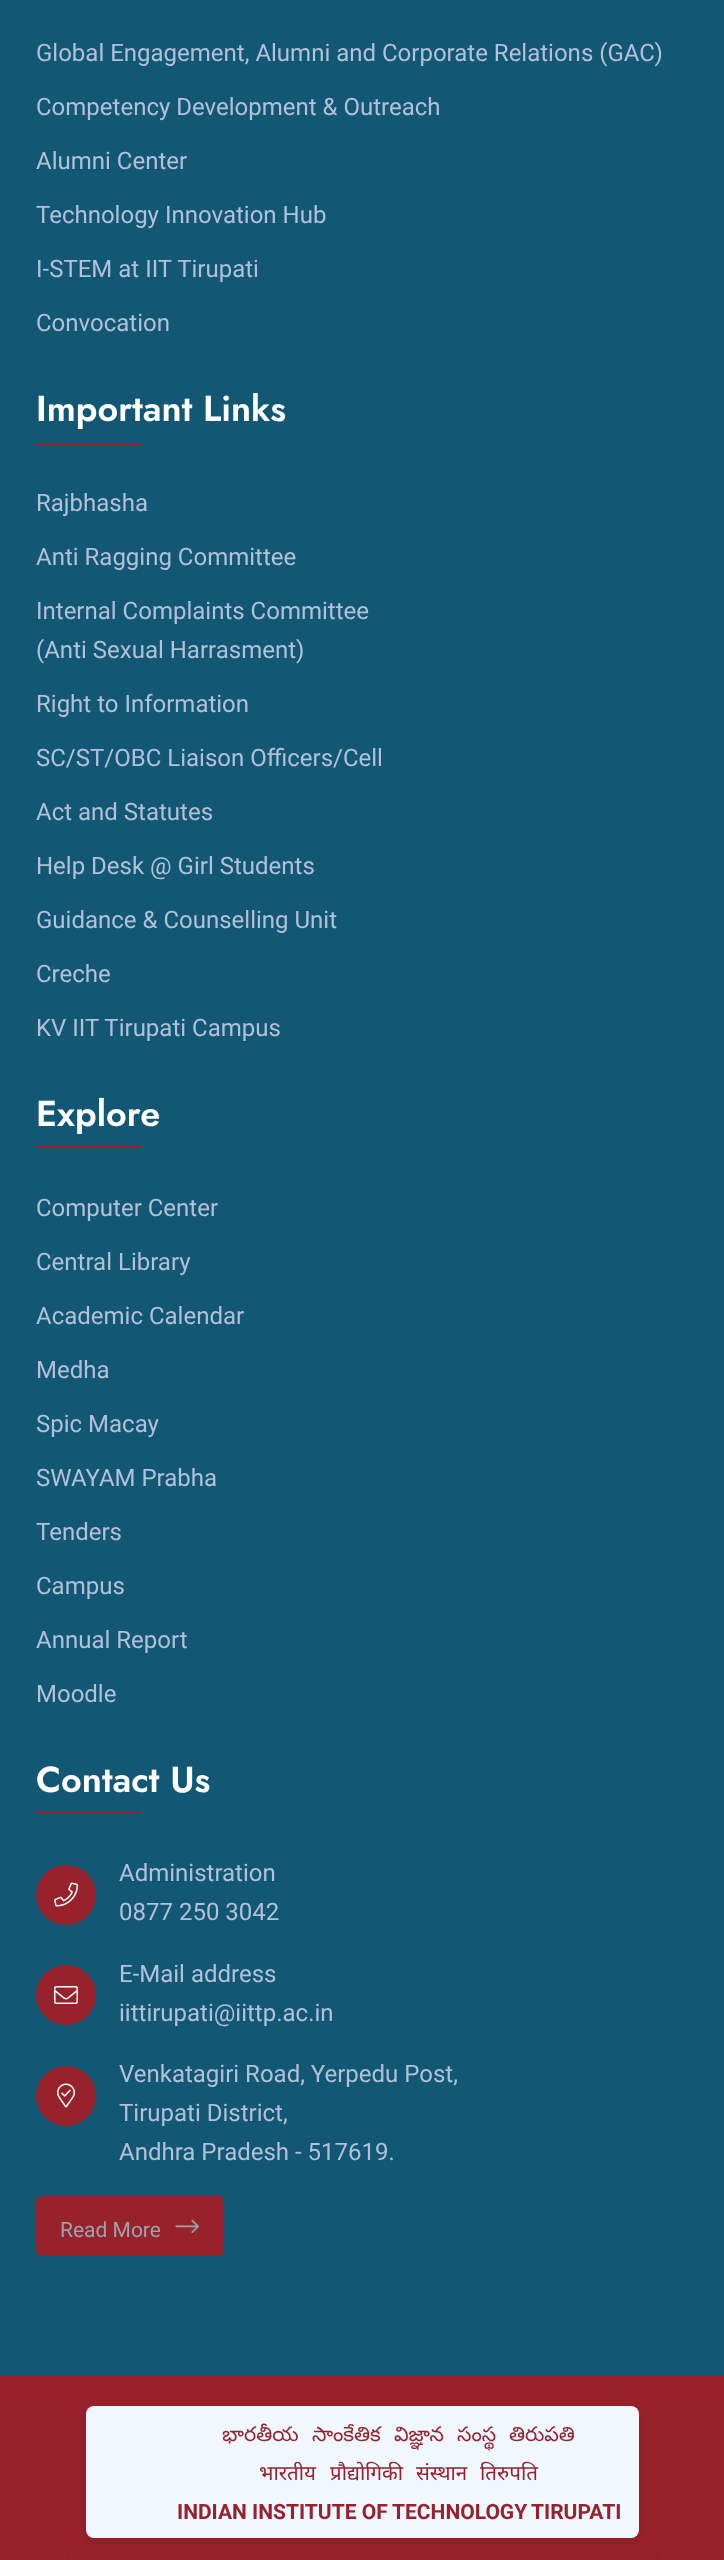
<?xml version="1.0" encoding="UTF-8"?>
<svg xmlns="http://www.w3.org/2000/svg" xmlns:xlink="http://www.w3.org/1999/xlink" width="724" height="2560">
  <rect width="100%" height="100%" fill="#125875" />
  <rect x="36" y="443" width="105" height="2" fill="#97222b" />
  <rect x="36" y="1146" width="105" height="2" fill="#97222b" />
  <rect x="36" y="1812" width="105" height="2" fill="#97222b" />
  <circle cx="66" cy="1895" r="30" fill="#97222b" />
  <image x="54" y="1882" width="25" height="25" xlink:href="image1.png" />
  <circle cx="66" cy="1995" r="30" fill="#97222b" />
  <image x="54" y="1986" width="24" height="18" xlink:href="image2.png" />
  <circle cx="66" cy="2096" r="30" fill="#97222b" />
  <image x="57" y="2083" width="18" height="25" xlink:href="image3.png" />
  <rect x="37" y="2197" width="186" height="58" rx="5" fill="#97222b" stroke="#97222b" stroke-width="2" />
  <image x="175" y="2219" width="25" height="15" xlink:href="image4.png" />
  <rect y="2376" width="724" height="184" fill="#97222b" />
  <rect x="86" y="2409" width="553" height="132" rx="8" fill="#000000" fill-opacity="0.07" filter="blur(3px)" />
  <rect x="86" y="2406" width="553" height="132" rx="8" fill="#f0f7ff" />
  <rect x="69" y="2547" width="587" height="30" rx="8" fill="#000000" fill-opacity="0.07" filter="blur(3px)" />
  <rect x="69" y="2544" width="587" height="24" rx="8" fill="#97222b" />
  <text x="36" y="61" style="font-family: Roboto; font-size: 24px; fill: #b2c0d8">Global Engagement, Alumni and Corporate Relations (GAC)</text>
  <text x="36" y="115" style="font-family: Roboto; font-size: 24px; fill: #b2c0d8">Competency Development &amp; Outreach</text>
  <text x="36" y="169" style="font-family: Roboto; font-size: 24px; fill: #b2c0d8">Alumni Center</text>
  <text x="36" y="223" style="font-family: Roboto; font-size: 24px; fill: #b2c0d8">Technology Innovation Hub</text>
  <text x="36" y="277" style="font-family: Roboto; font-size: 24px; fill: #b2c0d8">I-STEM at IIT Tirupati</text>
  <text x="36" y="331" style="font-family: Roboto; font-size: 24px; fill: #b2c0d8">Convocation</text>
  <text x="36" y="421" style="font-family: Jost; font-size: 36px; font-weight: 600; fill: #ffffff">Important Links</text>
  <text x="36" y="511" style="font-family: Roboto; font-size: 24px; fill: #b2c0d8">Rajbhasha</text>
  <text x="36" y="565" style="font-family: Roboto; font-size: 24px; fill: #b2c0d8">Anti Ragging Committee</text>
  <text x="36" y="619" style="font-family: Roboto; font-size: 24px; fill: #b2c0d8">Internal Complaints Committee</text>
  <text x="36" y="658" style="font-family: Roboto; font-size: 24px; fill: #b2c0d8">(Anti Sexual Harrasment)</text>
  <text x="36" y="712" style="font-family: Roboto; font-size: 24px; fill: #b2c0d8">Right to Information</text>
  <text x="36" y="766" style="font-family: Roboto; font-size: 24px; fill: #b2c0d8">SC/ST/OBC Liaison Officers/Cell</text>
  <text x="36" y="820" style="font-family: Roboto; font-size: 24px; fill: #b2c0d8">Act and Statutes</text>
  <text x="36" y="874" style="font-family: Roboto; font-size: 24px; fill: #b2c0d8">Help Desk @ Girl Students</text>
  <text x="36" y="928" style="font-family: Roboto; font-size: 24px; fill: #b2c0d8">Guidance &amp; Counselling Unit</text>
  <text x="36" y="982" style="font-family: Roboto; font-size: 24px; fill: #b2c0d8">Creche</text>
  <text x="36" y="1036" style="font-family: Roboto; font-size: 24px; fill: #b2c0d8">KV IIT Tirupati Campus</text>
  <text x="36" y="1126" style="font-family: Jost; font-size: 36px; font-weight: 600; fill: #ffffff">Explore</text>
  <text x="36" y="1216" style="font-family: Roboto; font-size: 24px; fill: #b2c0d8">Computer Center</text>
  <text x="36" y="1270" style="font-family: Roboto; font-size: 24px; fill: #b2c0d8">Central Library</text>
  <text x="36" y="1324" style="font-family: Roboto; font-size: 24px; fill: #b2c0d8">Academic Calendar</text>
  <text x="36" y="1378" style="font-family: Roboto; font-size: 24px; fill: #b2c0d8">Medha</text>
  <text x="36" y="1432" style="font-family: Roboto; font-size: 24px; fill: #b2c0d8">Spic Macay</text>
  <text x="36" y="1486" style="font-family: Roboto; font-size: 24px; fill: #b2c0d8">SWAYAM Prabha</text>
  <text x="36" y="1540" style="font-family: Roboto; font-size: 24px; fill: #b2c0d8">Tenders</text>
  <text x="36" y="1594" style="font-family: Roboto; font-size: 24px; fill: #b2c0d8">Campus</text>
  <text x="36" y="1648" style="font-family: Roboto; font-size: 24px; fill: #b2c0d8">Annual Report</text>
  <text x="36" y="1702" style="font-family: Roboto; font-size: 24px; fill: #b2c0d8">Moodle</text>
  <text x="36" y="1792" style="font-family: Jost; font-size: 36px; font-weight: 600; fill: #ffffff">Contact Us</text>
  <text x="119" y="1881" style="font-family: Roboto; font-size: 24px; fill: #b2c0d8">Administration</text>
  <text x="119" y="1920" style="font-family: Roboto; font-size: 24px; fill: #b2c0d8">0877 250 3042</text>
  <text x="119" y="1982" style="font-family: Roboto; font-size: 24px; fill: #b2c0d8">E-Mail address</text>
  <text x="119" y="2021" style="font-family: Roboto; font-size: 24px; fill: #b2c0d8">iittirupati@iittp.ac.in</text>
  <text x="119" y="2082" style="font-family: Roboto; font-size: 24px; fill: #b2c0d8">Venkatagiri Road, Yerpedu Post,</text>
  <text x="119" y="2121" style="font-family: Roboto; font-size: 24px; fill: #b2c0d8">Tirupati District,</text>
  <text x="119" y="2160" style="font-family: Roboto; font-size: 24px; fill: #b2c0d8">Andhra Pradesh - 517619.</text>
  <text x="60" y="2237" style="font-family: Roboto; font-size: 21px; fill: #99a3ac">Read More</text>
  <text x="222" y="2441" style="font-family: Noto Sans Telugu; font-size: 20.5px; fill: #97222b">భారతీయ</text>
  <text x="312" y="2441" style="font-family: Noto Sans Telugu; font-size: 20.5px; fill: #97222b">సాంకేతిక</text>
  <text x="394" y="2441" style="font-family: Noto Sans Telugu; font-size: 20.5px; fill: #97222b">విజ్ఞాన</text>
  <text x="457" y="2441" style="font-family: Noto Sans Telugu; font-size: 20.5px; fill: #97222b">సంస్థ</text>
  <text x="509" y="2441" style="font-family: Noto Sans Telugu; font-size: 20.5px; fill: #97222b">తిరుపతి</text>
  <text x="259" y="2480" style="font-family: Noto Sans; font-size: 20.5px; fill: #97222b">भारतीय</text>
  <text x="330" y="2480" style="font-family: Noto Sans; font-size: 20.5px; fill: #97222b">प्रौद्योगिकी</text>
  <text x="416" y="2480" style="font-family: Noto Sans; font-size: 20.5px; fill: #97222b">संस्थान</text>
  <text x="480" y="2480" style="font-family: Noto Sans; font-size: 20.5px; fill: #97222b">तिरुपति</text>
  <text x="177" y="2519" style="font-family: Roboto; font-size: 21px; font-weight: bold; fill: #97222b">INDIAN INSTITUTE OF</text>
  <text x="392" y="2519" style="font-family: Roboto; font-size: 21px; font-weight: bold; fill: #97222b">TECHNOLOGY</text>
  <text x="531" y="2519" style="font-family: Roboto; font-size: 21px; font-weight: bold; fill: #97222b">TIRUPATI</text>
</svg>
